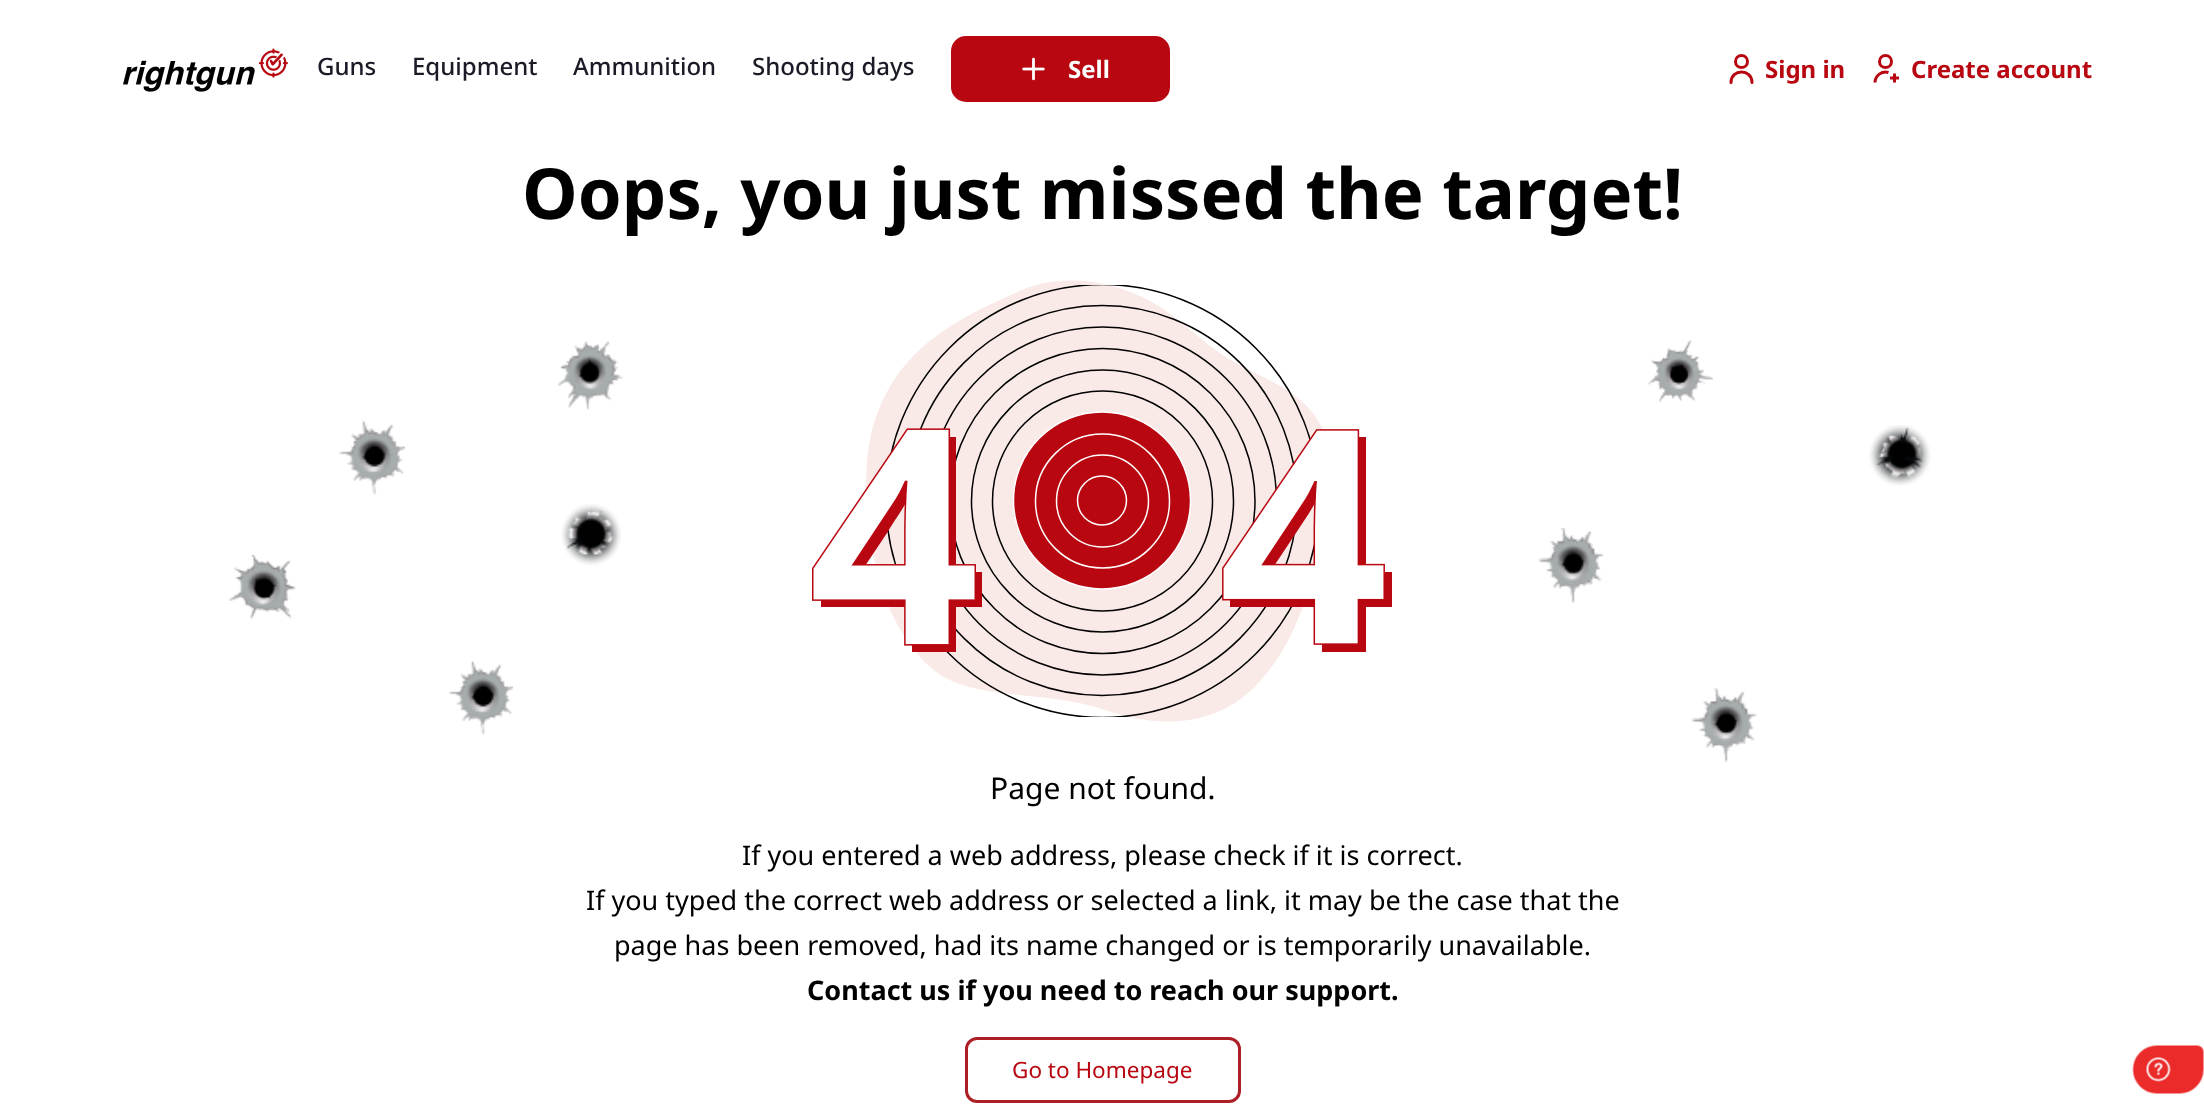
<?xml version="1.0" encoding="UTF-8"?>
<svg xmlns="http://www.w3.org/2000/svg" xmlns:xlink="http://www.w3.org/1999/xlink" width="2204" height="1106">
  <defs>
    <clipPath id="clip1"><rect x="887" y="285" width="432" height="432" /></clipPath>
  </defs>
  <rect width="100%" height="100%" fill="#ffffff" />
  <image x="123" y="48" width="165" height="44" xlink:href="image1.png" />
  <rect x="951" y="36" width="219" height="66" rx="15" fill="#b80710" />
  <image x="1022" y="57" width="23" height="24" xlink:href="image2.png" />
  <path d="M 1731 82.5 c 0 -14 21 -14 21 0 m -4.5 -21 c 0 8 -12 8 -12 0 c 0 -8 12 -8 12 0 z" fill="none" stroke="#b80710" stroke-width="3" stroke-linecap="round" stroke-linejoin="round" />
  <path d="M 1899 78 h -9 m 4.5 -4.5 v 9 m -19.5 0 c 0 -7 7 -12 13.5 -10 m 3 -11 c 0 8 -12 8 -12 0 c 0 -8 12 -8 12 0 z" fill="none" stroke="#b80710" stroke-width="3" />
  <image x="558" y="340" width="65" height="70" xlink:href="image3.png" />
  <image x="866" y="280" width="458" height="442" xlink:href="image4.png" />
  <g clip-path="url(#clip1)">
    <circle cx="1102.5" cy="501" r="216.5" fill="none" stroke="#000000" stroke-width="1.5" />
  </g>
  <circle cx="1102" cy="500.5" r="195" fill="none" stroke="#000000" stroke-width="1.5" />
  <circle cx="1102.5" cy="501" r="174" fill="none" stroke="#000000" stroke-width="1.5" />
  <circle cx="1102.5" cy="501" r="152.5" fill="none" stroke="#000000" stroke-width="1.5" />
  <circle cx="1102.5" cy="501" r="131" fill="none" stroke="#000000" stroke-width="1.5" />
  <circle cx="1102.5" cy="501" r="110" fill="none" stroke="#000000" stroke-width="1.5" />
  <circle cx="1102" cy="500.5" r="88.5" fill="#b80710" stroke="#ffffff" stroke-width="1.5" />
  <path d="M 982 607 h -26 v 45 h -44 v -45 h -91 v -31 l 94 -139 h 41 v 135 h 26 z m -70 -71 c 0 -16 0 -31 2 -47 h -1 c -7 16 -17 29 -26 44 l -26 39 h 51 z" fill="#b80710" />
  <image x="812" y="428" width="164" height="218" xlink:href="image5.png" />
  <path d="M 1392 607 h -26 v 45 h -44 v -45 h -92 v -31 l 94 -139 h 42 v 135 h 26 z m -70 -71 c 0 -16 0 -31 2 -47 h -2 c -7 16 -16 29 -26 44 l -26 39 h 52 z" fill="#b80710" />
  <image x="1222" y="429" width="163" height="216" xlink:href="image6.png" />
  <circle cx="1102.5" cy="501" r="67" fill="none" stroke="#ffffff" stroke-width="1.5" />
  <circle cx="1102.5" cy="501" r="46" fill="none" stroke="#ffffff" stroke-width="1.5" />
  <circle cx="1102" cy="500.5" r="24.5" fill="none" stroke="#ffffff" stroke-width="1.5" />
  <image x="1648" y="340" width="65" height="62" xlink:href="image7.png" />
  <image x="339" y="421" width="66" height="74" xlink:href="image8.png" />
  <image x="1869" y="425" width="62" height="61" xlink:href="image9.png" />
  <image x="229" y="555" width="67" height="65" xlink:href="image10.png" />
  <image x="561" y="504" width="60" height="62" xlink:href="image11.png" />
  <image x="1539" y="528" width="65" height="75" xlink:href="image12.png" />
  <image x="448" y="661" width="65" height="74" xlink:href="image13.png" />
  <image x="1692" y="688" width="65" height="74" xlink:href="image14.png" />
  <rect x="966.5" y="1038.5" width="273" height="63" rx="10.5" fill="none" stroke="#ad1f26" stroke-width="3" />
  <image x="2132" y="1045" width="72" height="49" xlink:href="image15.png" />
  <text x="317" y="75" style="font-family: Noto Sans; font-size: 24px; font-weight: 500; fill: #1c1a27">Guns</text>
  <text x="412" y="75" style="font-family: Noto Sans; font-size: 24px; font-weight: 500; fill: #1c1a27">Equipment</text>
  <text x="573" y="75" style="font-family: Noto Sans; font-size: 24px; font-weight: 500; fill: #1c1a27">Ammunition</text>
  <text x="752" y="75" style="font-family: Noto Sans; font-size: 24px; font-weight: 500; fill: #1c1a27">Shooting days</text>
  <text x="1068" y="78" style="font-family: 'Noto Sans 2'; font-size: 24px; font-weight: bold; fill: #ffffff">Sell</text>
  <text x="1765" y="78" style="font-family: Noto Sans; font-size: 24px; font-weight: bold; fill: #b80710">Sign in</text>
  <text x="1911" y="78" style="font-family: Noto Sans; font-size: 24px; font-weight: bold; fill: #b80710">Create account</text>
  <text x="522" y="219" style="font-family: Noto Sans; font-size: 70.5px; font-weight: bold; fill: #000000">Oops, you just missed the target!</text>
  <text x="990" y="799" style="font-family: Noto Sans; font-size: 30px; fill: #000000">Page not found.</text>
  <text x="742" y="865" style="font-family: Noto Sans; font-size: 27px; fill: #000000">If you entered a web address, please check if it is correct.</text>
  <text x="586" y="910" style="font-family: Noto Sans; font-size: 27px; fill: #000000">If you typed the correct web address or selected a link, it may be the case that the</text>
  <text x="614" y="955" style="font-family: Noto Sans; font-size: 27px; fill: #000000">page has been removed, had its name changed or is temporarily unavailable.</text>
  <text x="807" y="1000" style="font-family: Noto Sans; font-size: 27px; font-weight: bold; fill: #000000">Contact us if you need to reach our support.</text>
  <text x="1012" y="1078" style="font-family: Noto Sans; font-size: 22.5px; fill: #b80710">Go to Homepage</text>
</svg>
